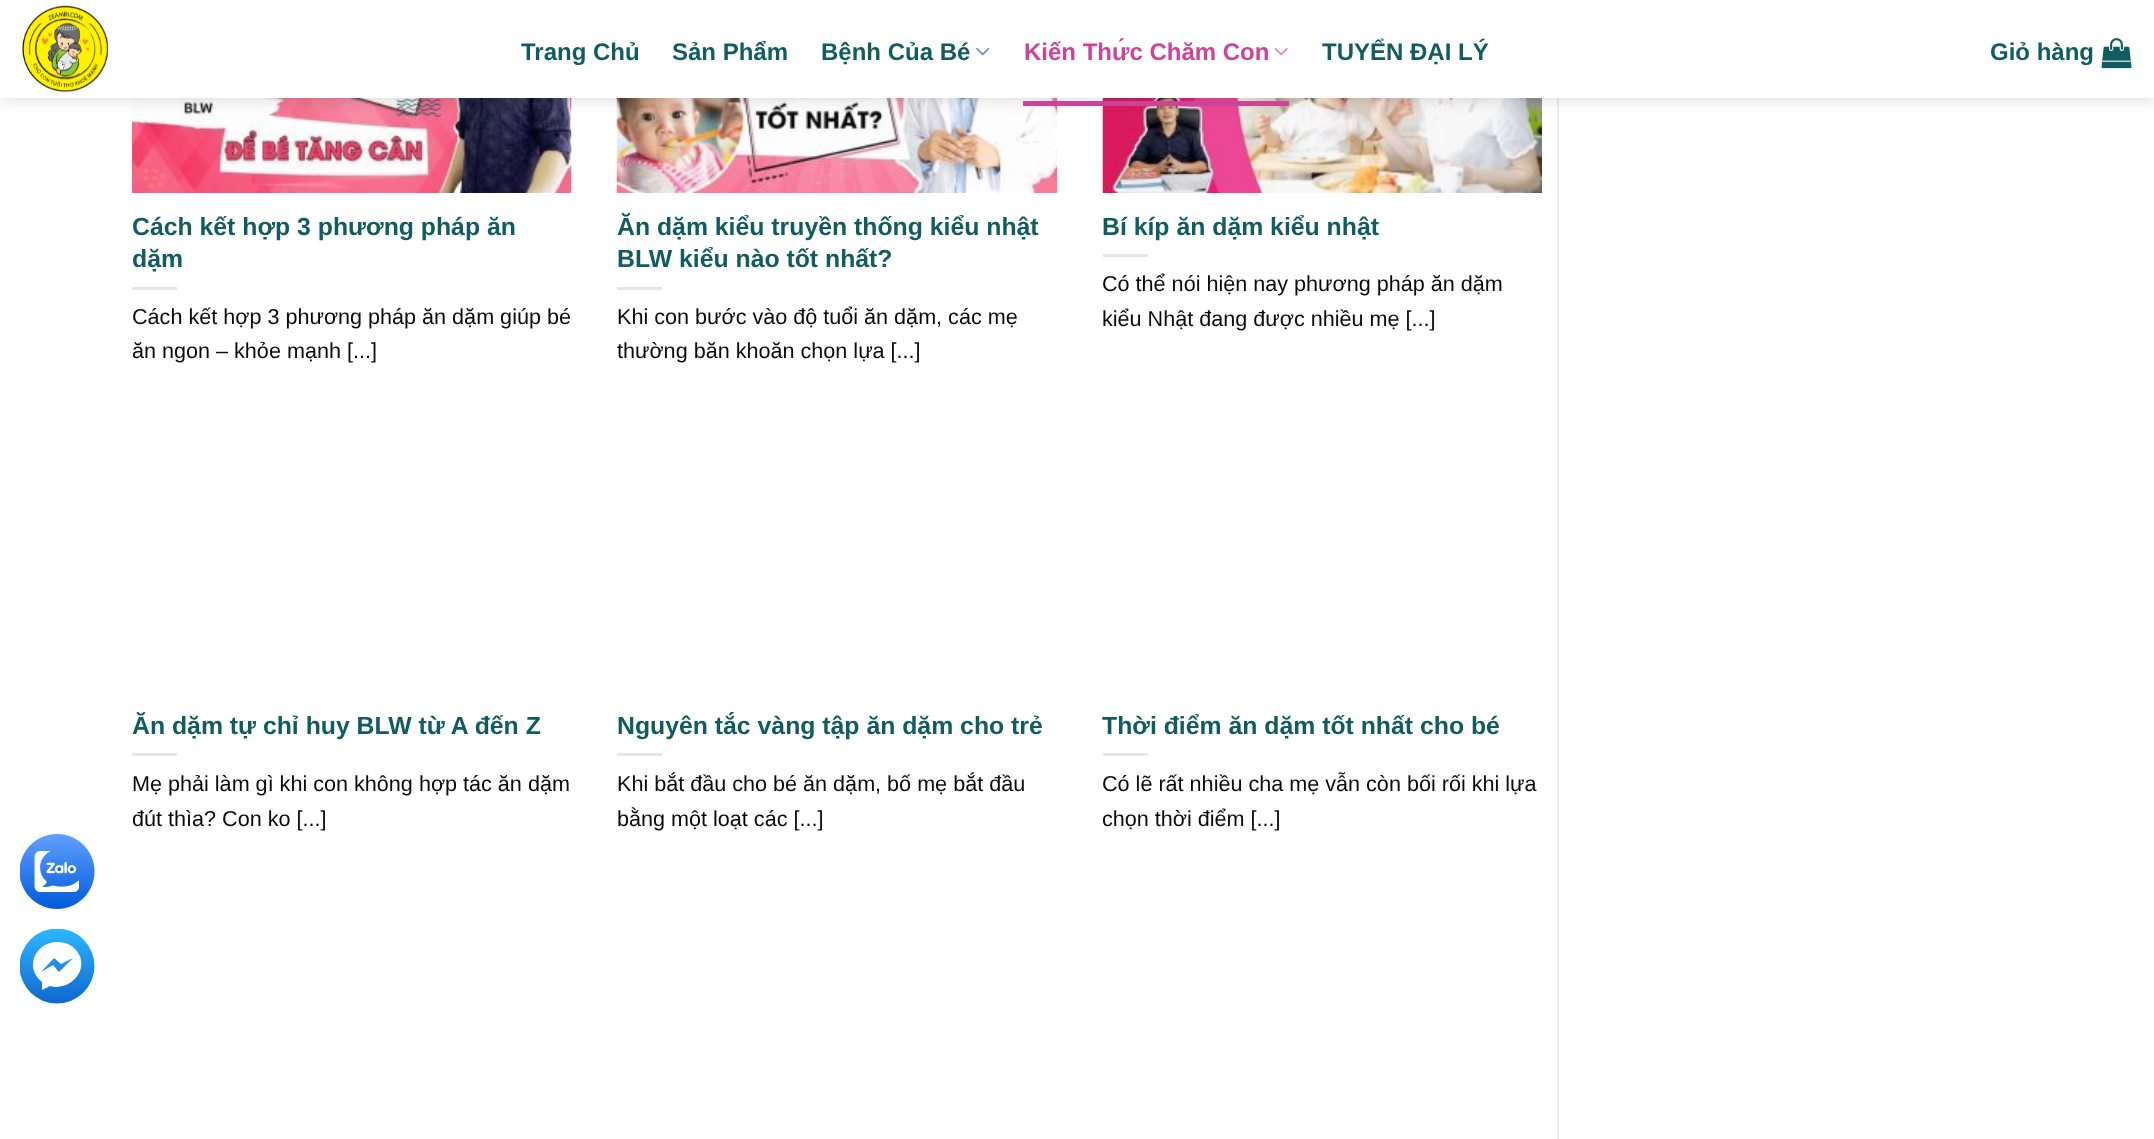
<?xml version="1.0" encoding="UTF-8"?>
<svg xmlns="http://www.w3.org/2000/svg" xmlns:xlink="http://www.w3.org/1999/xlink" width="2154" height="1139">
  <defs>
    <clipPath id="clip1"><rect x="20" y="929" width="75" height="75" /></clipPath>
    <linearGradient id="g1" gradientUnits="userSpaceOnUse" x1="56" y1="1002" x2="56" y2="929"><stop offset="0" stop-color="#1168cf" /><stop offset="1" stop-color="#2cb7ff" /></linearGradient>
  </defs>
  <rect width="100%" height="100%" fill="#ffffff" />
  <image x="132" y="98" width="440" height="95" xlink:href="image5.png" />
  <image x="616" y="98" width="442" height="95" xlink:href="image6.png" />
  <image x="1102" y="98" width="440" height="95" xlink:href="image7.png" />
  <rect x="1557" y="98" width="2" height="1041" fill="#ececec" />
  <rect x="2" y="2" width="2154" height="97" fill="#000000" fill-opacity="0.15" filter="blur(7.5px)" />
  <rect width="2154" height="98" fill="#ffffff" />
  <image x="22" y="5" width="87" height="87" xlink:href="image1.png" />
  <image x="976" y="47" width="14" height="9" xlink:href="image2.png" />
  <image x="1274" y="47" width="14" height="9" xlink:href="image3.png" />
  <rect x="1023" y="101" width="266" height="5" fill="#cd4398" />
  <image x="2101" y="38" width="31" height="31" xlink:href="image4.png" />
  <rect x="132" y="287" width="45" height="3" fill="#e6e6e6" />
  <rect x="617" y="287" width="45" height="3" fill="#e6e6e6" />
  <rect x="1103" y="254" width="45" height="3" fill="#e6e6e6" />
  <rect x="132" y="753" width="45" height="3" fill="#e6e6e6" />
  <rect x="617" y="753" width="45" height="3" fill="#e6e6e6" />
  <rect x="1103" y="753" width="45" height="3" fill="#e6e6e6" />
  <image x="20" y="834" width="75" height="75" xlink:href="image8.png" />
  <g clip-path="url(#clip1)">
    <circle cx="57" cy="966" r="37.5" fill="url(#g1)" />
  </g>
  <path d="M 57 942 c -22 0 -33 26 -15 40 v 8 l 8 -4 c 22 6 43 -20 24 -38 c -4 -4 -11 -6 -17 -6 z m 2 30 l -6 -7 l -12 7 l 13 -14 l 7 6 l 12 -6 z" fill="#ffffff" fill-rule="evenodd" />
  <text x="521" y="60" style="font-family: Liberation Sans; font-size: 24px; font-weight: bold; fill: #115c61">Trang Chủ</text>
  <text x="672" y="60" style="font-family: Liberation Sans; font-size: 24px; font-weight: bold; fill: #115c61">Sản Phẩm</text>
  <text x="821" y="60" style="font-family: Liberation Sans; font-size: 24px; font-weight: bold; fill: #115c61">Bệnh Của Bé</text>
  <text x="1024" y="60" style="font-family: Liberation Sans; font-size: 24px; font-weight: bold; fill: #cd4398">Kiến Thức Chăm Con</text>
  <text x="1322" y="60" style="font-family: Liberation Sans; font-size: 24px; font-weight: bold; fill: #115c61">TUYỂN ĐẠI LÝ</text>
  <text x="1990" y="60" style="font-family: Liberation Sans; font-size: 24px; font-weight: bold; fill: #115c61">Giỏ hàng</text>
  <text x="132" y="235" style="font-family: Liberation Sans; font-size: 24.8px; font-weight: bold; fill: #115c61">Cách kết hợp 3 phương pháp ăn</text>
  <text x="132" y="267" style="font-family: Liberation Sans; font-size: 24.8px; font-weight: bold; fill: #115c61">dặm</text>
  <text x="132" y="324" style="font-family: Liberation Sans; font-size: 21.6px; fill: #0a0a0a">Cách kết hợp 3 phương pháp ăn dặm giúp bé</text>
  <text x="132" y="358" style="font-family: Liberation Sans; font-size: 21.6px; fill: #0a0a0a">ăn ngon – khỏe mạnh [...]</text>
  <text x="617" y="235" style="font-family: Liberation Sans; font-size: 24.8px; font-weight: bold; fill: #115c61">Ăn dặm kiểu truyền thống kiểu nhật</text>
  <text x="617" y="267" style="font-family: Liberation Sans; font-size: 24.8px; font-weight: bold; fill: #115c61">BLW kiểu nào tốt nhất?</text>
  <text x="617" y="324" style="font-family: Liberation Sans; font-size: 21.6px; fill: #0a0a0a">Khi con bước vào độ tuổi ăn dặm, các mẹ</text>
  <text x="617" y="358" style="font-family: Liberation Sans; font-size: 21.6px; fill: #0a0a0a">thường băn khoăn chọn lựa [...]</text>
  <text x="1102" y="235" style="font-family: Liberation Sans; font-size: 24.8px; font-weight: bold; fill: #115c61">Bí kíp ăn dặm kiểu nhật</text>
  <text x="1102" y="291" style="font-family: Liberation Sans; font-size: 21.6px; fill: #0a0a0a">Có thể nói hiện nay phương pháp ăn dặm</text>
  <text x="1102" y="326" style="font-family: Liberation Sans; font-size: 21.6px; fill: #0a0a0a">kiểu Nhật đang được nhiều mẹ [...]</text>
  <text x="132" y="734" style="font-family: Liberation Sans; font-size: 24.8px; font-weight: bold; fill: #115c61">Ăn dặm tự chỉ huy BLW từ A đến Z</text>
  <text x="132" y="791" style="font-family: Liberation Sans; font-size: 21.6px; fill: #0a0a0a">Mẹ phải làm gì khi con không hợp tác ăn dặm</text>
  <text x="132" y="826" style="font-family: Liberation Sans; font-size: 21.6px; fill: #0a0a0a">đút thìa? Con ko [...]</text>
  <text x="617" y="734" style="font-family: Liberation Sans; font-size: 24.8px; font-weight: bold; fill: #115c61">Nguyên tắc vàng tập ăn dặm cho trẻ</text>
  <text x="617" y="791" style="font-family: Liberation Sans; font-size: 21.6px; fill: #0a0a0a">Khi bắt đầu cho bé ăn dặm, bố mẹ bắt đầu</text>
  <text x="617" y="826" style="font-family: Liberation Sans; font-size: 21.6px; fill: #0a0a0a">bằng một loạt các [...]</text>
  <text x="1102" y="734" style="font-family: Liberation Sans; font-size: 24.8px; font-weight: bold; fill: #115c61">Thời điểm ăn dặm tốt nhất cho bé</text>
  <text x="1102" y="791" style="font-family: Liberation Sans; font-size: 21.6px; fill: #0a0a0a">Có lẽ rất nhiều cha mẹ vẫn còn bối rối khi lựa</text>
  <text x="1102" y="826" style="font-family: Liberation Sans; font-size: 21.6px; fill: #0a0a0a">chọn thời điểm [...]</text>
</svg>
